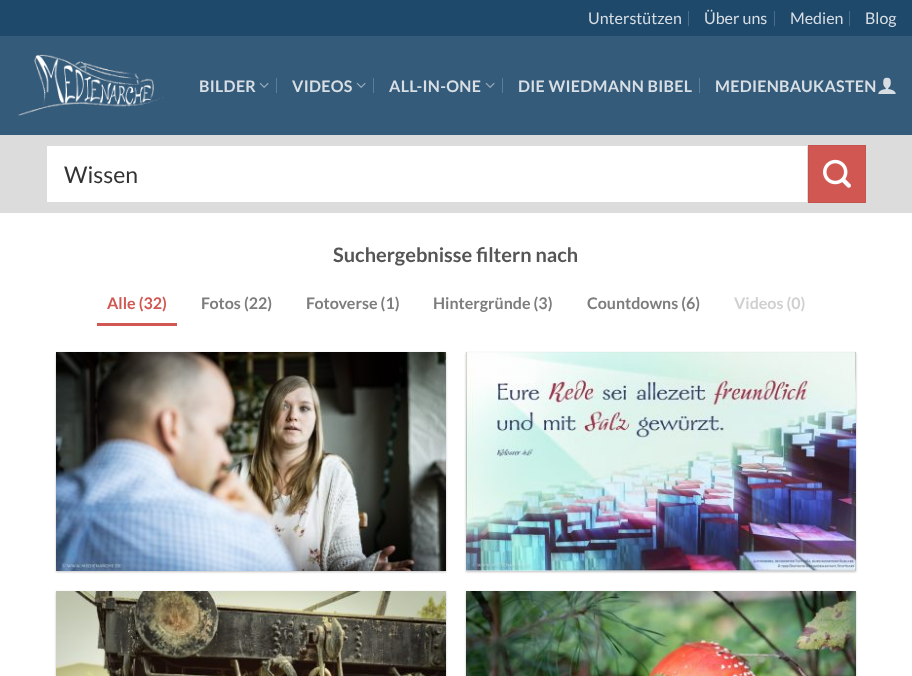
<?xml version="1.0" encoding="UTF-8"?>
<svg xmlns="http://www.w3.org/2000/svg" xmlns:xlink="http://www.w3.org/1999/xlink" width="912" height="676">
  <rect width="100%" height="100%" fill="#ffffff" />
  <rect width="912" height="36" fill="#1f496b" />
  <rect x="688" y="11" width="1" height="15" fill="#4c6d89" />
  <rect x="774" y="11" width="1" height="15" fill="#4c6d89" />
  <rect x="849" y="11" width="1" height="15" fill="#4c6d89" />
  <rect y="36" width="912" height="99" fill="#355b7a" />
  <image x="18" y="54" width="146" height="62" xlink:href="image1.png" />
  <image x="259" y="82" width="10" height="6" xlink:href="image2.png" />
  <rect x="276" y="78" width="1" height="15" fill="#5d7c95" />
  <image x="356" y="82" width="10" height="6" xlink:href="image2.png" />
  <rect x="373" y="78" width="1" height="15" fill="#5d7c95" />
  <image x="485" y="82" width="10" height="6" xlink:href="image2.png" />
  <rect x="502" y="78" width="1" height="15" fill="#5d7c95" />
  <rect x="699" y="78" width="1" height="15" fill="#5d7c95" />
  <image x="878" y="77" width="18" height="17" xlink:href="image3.png" />
  <rect y="135" width="912" height="78" fill="#dcdcdc" />
  <rect x="47" y="146" width="760" height="56" fill="#ffffff" />
  <rect x="808.5" y="145.5" width="57" height="57" fill="#d15752" stroke="#c7534e" />
  <image x="823" y="159" width="28" height="29" xlink:href="image4.png" />
  <rect x="97" y="323" width="80" height="3" fill="#d15752" />
  <rect x="56" y="353" width="390" height="219" fill="#000000" fill-opacity="0.24" filter="blur(1px)" />
  <image x="56" y="352" width="390" height="219" xlink:href="image5.png" />
  <rect x="466" y="353" width="390" height="219" fill="#000000" fill-opacity="0.24" filter="blur(1px)" />
  <image x="466" y="352" width="390" height="219" xlink:href="image6.png" />
  <rect x="56" y="592" width="390" height="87" fill="#000000" fill-opacity="0.24" filter="blur(1px)" />
  <image x="56" y="591" width="390" height="85" xlink:href="image7.png" />
  <rect x="466" y="592" width="390" height="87" fill="#000000" fill-opacity="0.24" filter="blur(1px)" />
  <image x="466" y="591" width="390" height="85" xlink:href="image8.png" />
  <text x="588" y="24" style="font-family: Lato; font-size: 16px; fill: #d7dee4">Unterstützen</text>
  <text x="704" y="24" style="font-family: Lato; font-size: 16px; fill: #d7dee4">Über uns</text>
  <text x="790" y="24" style="font-family: Lato; font-size: 16px; fill: #d7dee4">Medien</text>
  <text x="865" y="24" style="font-family: Lato; font-size: 16px; fill: #d7dee4">Blog</text>
  <text x="199" y="92" style="font-family: Lato; font-size: 16px; font-weight: bold; letter-spacing: 0.3px; fill: #d7dee4">BILDER</text>
  <text x="292" y="92" style="font-family: Lato; font-size: 16px; font-weight: bold; letter-spacing: 0.3px; fill: #d7dee4">VIDEOS</text>
  <text x="389" y="92" style="font-family: Lato; font-size: 16px; font-weight: bold; letter-spacing: 0.3px; fill: #d7dee4">ALL-IN-ONE</text>
  <text x="518" y="92" style="font-family: Lato; font-size: 16px; font-weight: bold; letter-spacing: 0.3px; fill: #d7dee4">DIE WIEDMANN BIBEL</text>
  <text x="715" y="92" style="font-family: Lato; font-size: 16px; font-weight: bold; letter-spacing: 0.3px; fill: #d7dee4">MEDIENBAUKASTEN</text>
  <text x="64" y="183" style="font-family: Lato; font-size: 23px; fill: #333333">Wissen</text>
  <text x="333" y="262" style="font-family: Lato; font-size: 20px; font-weight: bold; fill: #555555">Suchergebnisse filtern nach</text>
  <text x="107" y="309" style="font-family: Lato; font-size: 16px; font-weight: bold; fill: #d15752">Alle (32)</text>
  <text x="201" y="309" style="font-family: Lato; font-size: 16px; font-weight: bold; fill: #7d7d7d">Fotos (22)</text>
  <text x="306" y="309" style="font-family: Lato; font-size: 16px; font-weight: bold; fill: #7d7d7d">Fotoverse (1)</text>
  <text x="433" y="309" style="font-family: Lato; font-size: 16px; font-weight: bold; fill: #7d7d7d">Hintergründe (3)</text>
  <text x="587" y="309" style="font-family: Lato; font-size: 16px; font-weight: bold; fill: #7d7d7d">Countdowns (6)</text>
  <text x="734" y="309" style="font-family: Lato; font-size: 16px; font-weight: bold; fill: #d0d0d0">Videos (0)</text>
</svg>
